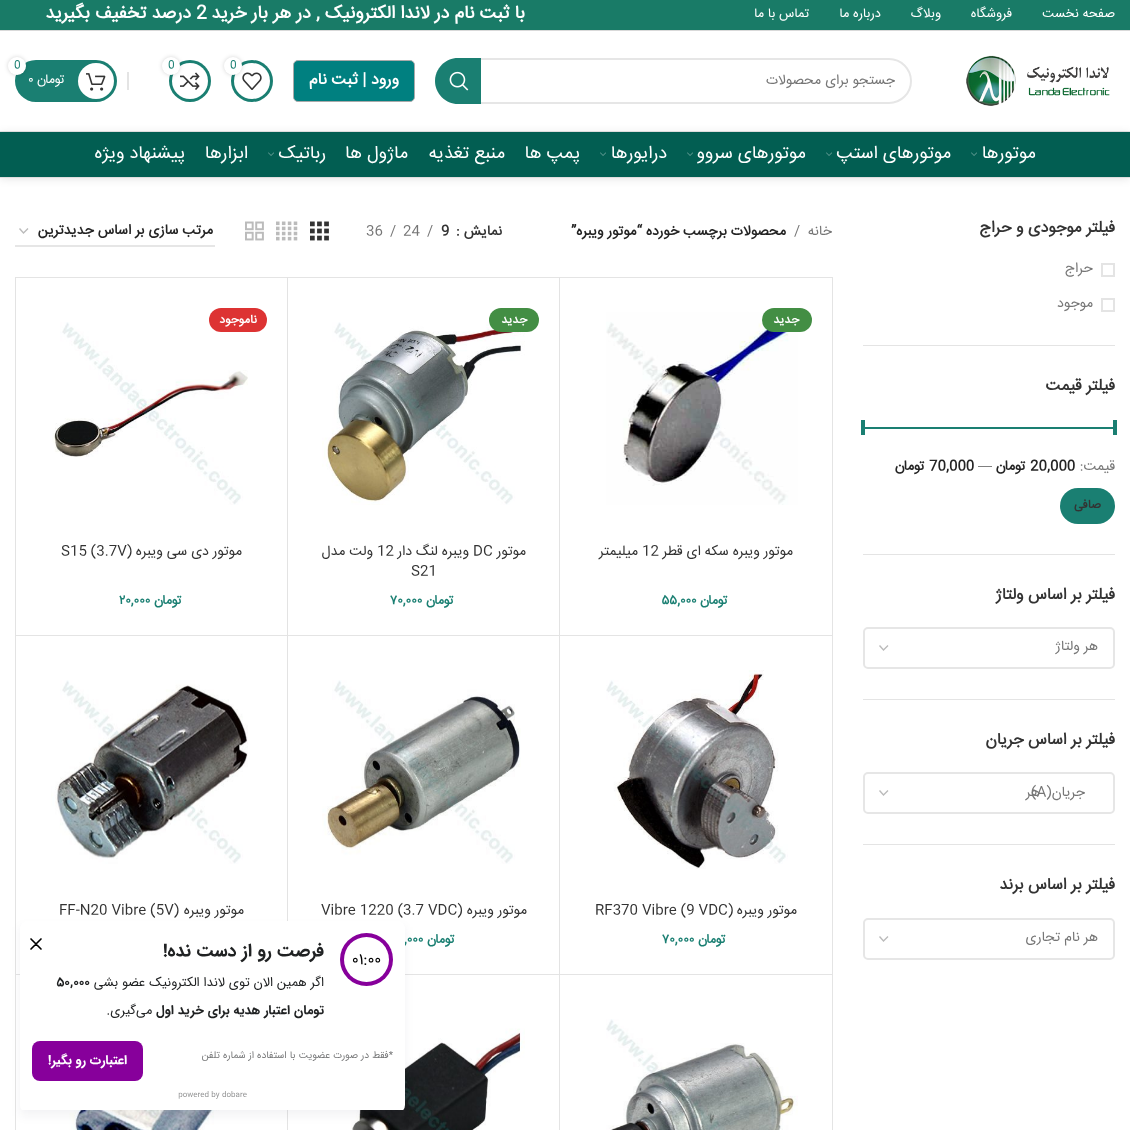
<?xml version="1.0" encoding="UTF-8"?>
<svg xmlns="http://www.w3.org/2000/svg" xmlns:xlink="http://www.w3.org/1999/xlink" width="1130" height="1130">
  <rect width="100%" height="100%" fill="#ffffff" />
  <rect width="1130" height="30" fill="#197b67" />
  <rect y="30" width="1130" height="1" fill="#d9d9d9" />
  <rect y="131" width="1130" height="1" fill="#e6e6e6" />
  <image x="966" y="55" width="144" height="51" xlink:href="image1.png" />
  <rect x="436" y="59" width="475" height="44" rx="22" fill="none" stroke="#e6e6e6" stroke-width="2" />
  <path d="M 458 58 h 23 v 46 h -23 c -12.5 0 -23 -10.5 -23 -23 c 0 -12.5 10.5 -23 23 -23 z" fill="#1a7f72" />
  <image x="449" y="71" width="20" height="20" xlink:href="image2.png" />
  <circle cx="252" cy="81" r="21" fill="#1a7f72" />
  <circle cx="252" cy="81" r="18" fill="#ffffff" />
  <image x="242" y="72" width="20" height="18" xlink:href="image3.png" />
  <rect x="224" y="57" width="18" height="18" rx="9" fill="#000000" fill-opacity="0.17" filter="blur(2px)" />
  <circle cx="233" cy="66" r="9" fill="#ffffff" />
  <circle cx="190" cy="81" r="21" fill="#1a7f72" />
  <circle cx="190" cy="81" r="18" fill="#ffffff" />
  <image x="180" y="72" width="20" height="18" xlink:href="image4.png" />
  <rect x="162" y="57" width="18" height="18" rx="9" fill="#000000" fill-opacity="0.17" filter="blur(2px)" />
  <circle cx="171" cy="66" r="9" fill="#ffffff" />
  <rect x="15" y="60" width="102" height="42" rx="21" fill="#1a7f72" />
  <circle cx="96" cy="81" r="18" fill="#ffffff" />
  <rect x="8" y="57" width="18" height="18" rx="9" fill="#000000" fill-opacity="0.17" filter="blur(2px)" />
  <circle cx="17" cy="66" r="9" fill="#ffffff" />
  <image x="86" y="73" width="20" height="18" xlink:href="image5.png" />
  <rect x="293.5" y="60.5" width="121" height="41" rx="4.5" fill="#008080" stroke="#aaaaaa" />
  <rect x="127" y="72" width="2" height="18" fill="#e4e4e4" />
  <rect y="133" width="1130" height="46" fill="#000000" fill-opacity="0.1" filter="blur(4px)" />
  <rect y="132" width="1130" height="45" fill="#025e52" />
  <rect y="177" width="1130" height="1" fill="#dedede" />
  <image x="971" y="152" width="6" height="4" xlink:href="image6.png" />
  <image x="826" y="152" width="6" height="4" xlink:href="image6.png" />
  <image x="687" y="152" width="6" height="4" xlink:href="image6.png" />
  <image x="600" y="152" width="6" height="4" xlink:href="image6.png" />
  <image x="268" y="152" width="6" height="4" xlink:href="image6.png" />
  <rect x="863" y="345" width="252" height="1" fill="#e4e4e4" />
  <rect x="1102" y="264" width="12" height="12" fill="none" stroke="#e4e4e4" stroke-width="2" />
  <rect x="1102" y="299" width="12" height="12" fill="none" stroke="#e4e4e4" stroke-width="2" />
  <rect x="863" y="554" width="252" height="1" fill="#e4e4e4" />
  <rect x="863" y="427" width="252" height="2" fill="#1a7f72" />
  <rect x="1113" y="420" width="4" height="15" fill="#1a7f72" />
  <rect x="861" y="420" width="4" height="15" fill="#1a7f72" />
  <rect x="1060" y="488" width="55" height="36" rx="18" fill="#1a7f72" />
  <rect x="863" y="699" width="252" height="1" fill="#e4e4e4" />
  <path d="M 879.5 645.5 l 4 4.5 l 4.5 -4.5" fill="none" stroke="#bbbbbb" stroke-width="1.4" />
  <rect x="864" y="628" width="250" height="40" rx="4" fill="none" stroke="#e6e6e6" stroke-width="2" />
  <rect x="863" y="844" width="252" height="1" fill="#e4e4e4" />
  <path d="M 879.5 790.5 l 4 4.5 l 4.5 -4.5" fill="none" stroke="#bbbbbb" stroke-width="1.4" />
  <rect x="864" y="773" width="250" height="40" rx="4" fill="none" stroke="#e6e6e6" stroke-width="2" />
  <path d="M 879.5 936.5 l 4 4.5 l 4.5 -4.5" fill="none" stroke="#bbbbbb" stroke-width="1.4" />
  <rect x="864" y="919" width="250" height="40" rx="4" fill="none" stroke="#e6e6e6" stroke-width="2" />
  <image x="310" y="221" width="19" height="20" xlink:href="image7.png" />
  <image x="276" y="221" width="22" height="20" xlink:href="image8.png" />
  <image x="245" y="221" width="19" height="20" xlink:href="image9.png" />
  <path d="M 19.5 228.5 l 4 4.5 l 4.5 -4.5" fill="none" stroke="#bbbbbb" stroke-width="1.4" />
  <rect x="15" y="245" width="200" height="2" fill="#e6e6e6" />
  <rect x="832" y="277" width="1" height="853" fill="#e4e4e4" />
  <path d="M 559 277 h 273 v 1 h -272 z" fill="#e4e4e4" />
  <path d="M 832 636 h -273 l 1 -1 h 272 z" fill="#e4e4e4" />
  <path d="M 559 636 v -359 l 1 1 v 357 z" fill="#000000" fill-opacity="0.11" />
  <image x="606" y="312" width="192" height="193" xlink:href="image10.png" />
  <rect x="762" y="308" width="50" height="24" rx="12" fill="#438e44" />
  <path d="M 287 277 h 272 v 1 h -271 z" fill="#e4e4e4" />
  <path d="M 559 636 h -272 l 1 -1 h 271 z" fill="#e4e4e4" />
  <path d="M 287 636 v -359 l 1 1 v 357 z" fill="#000000" fill-opacity="0.11" />
  <image x="322" y="322" width="203" height="183" xlink:href="image11.png" />
  <rect x="489" y="308" width="50" height="24" rx="12" fill="#438e44" />
  <path d="M 15 277 h 272 v 1 h -271 z" fill="#e4e4e4" />
  <path d="M 287 636 h -272 l 1 -1 h 271 z" fill="#e4e4e4" />
  <path d="M 15 636 v -359 l 1 1 v 357 z" fill="#000000" fill-opacity="0.11" />
  <image x="52" y="322" width="196" height="183" xlink:href="image12.png" />
  <rect x="209" y="308" width="58" height="24" rx="12" fill="#dd3333" />
  <path d="M 832 975 h -273 l 1 -1 h 272 z" fill="#e4e4e4" />
  <path d="M 559 975 v -339 h 1 v 338 z" fill="#000000" fill-opacity="0.11" />
  <image x="606" y="670" width="182" height="199" xlink:href="image13.png" />
  <path d="M 559 975 h -272 l 1 -1 h 271 z" fill="#e4e4e4" />
  <path d="M 287 975 v -339 h 1 v 338 z" fill="#000000" fill-opacity="0.11" />
  <image x="322" y="680" width="199" height="184" xlink:href="image14.png" />
  <path d="M 287 975 h -272 l 1 -1 h 271 z" fill="#e4e4e4" />
  <path d="M 15 975 v -339 h 1 v 338 z" fill="#000000" fill-opacity="0.11" />
  <image x="51" y="680" width="197" height="184" xlink:href="image15.png" />
  <path d="M 559 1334 v -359 h 1 v 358 z" fill="#e4e4e4" />
  <image x="606" y="1019" width="192" height="111" xlink:href="image16.png" />
  <path d="M 287 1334 v -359 h 1 v 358 z" fill="#e4e4e4" />
  <image x="334" y="1019" width="191" height="111" xlink:href="image17.png" />
  <path d="M 15 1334 v -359 h 1 v 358 z" fill="#e4e4e4" />
  <image x="61" y="1110" width="173" height="20" xlink:href="image18.png" />
  <rect x="20" y="927" width="385" height="189" fill="#101840" fill-opacity="0.05" filter="blur(5px)" />
  <text x="1115" y="17" style="font-family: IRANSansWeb; font-size: 13px; direction: rtl; fill: #ffffff">صفحه نخست</text>
  <text x="1012" y="17" style="font-family: IRANSansWeb; font-size: 13px; direction: rtl; fill: #ffffff">فروشگاه</text>
  <text x="941" y="17" style="font-family: IRANSansWeb; font-size: 13px; direction: rtl; fill: #ffffff">وبلاگ</text>
  <text x="881" y="17" style="font-family: IRANSansWeb; font-size: 13px; direction: rtl; fill: #ffffff">درباره ما</text>
  <text x="809" y="17" style="font-family: IRANSansWeb; font-size: 13px; direction: rtl; fill: #ffffff">تماس با ما</text>
  <text x="525" y="18" style="font-family: IRANSansWeb; font-size: 18px; font-weight: bold; direction: rtl; fill: #ffffff">با ثبت نام در لاندا الکترونیک , در هر بار خرید</text>
  <text x="196" y="18" style="font-family: IRANSansWeb; font-size: 18px; font-weight: bold; fill: #ffffff">2</text>
  <text x="191" y="18" style="font-family: IRANSansWeb; font-size: 18px; font-weight: bold; direction: rtl; fill: #ffffff">درصد تخفیف بگیرید</text>
  <text x="895" y="84" style="font-family: IRANSansWeb; font-size: 14px; direction: rtl; fill: #767676">جستجو برای محصولات</text>
  <text x="230" y="68" style="font-family: IRANSansWeb; font-size: 11px; fill: #1a7f72">0</text>
  <text x="168" y="68" style="font-family: IRANSansWeb; font-size: 11px; fill: #1a7f72">0</text>
  <text x="14" y="68" style="font-family: IRANSansWeb; font-size: 11px; fill: #1a7f72">0</text>
  <text x="65" y="83" style="font-family: IRANSansWeb; font-size: 13px; direction: rtl; fill: #ffffff">تومان</text>
  <text x="28" y="83" style="font-family: IRANSansWeb; font-size: 13px; fill: #ffffff">۰</text>
  <text x="399" y="84" style="font-family: IRANSansWeb; font-size: 16px; font-weight: bold; direction: rtl; fill: #ffffff">ورود | ثبت نام</text>
  <text x="1036" y="158" style="font-family: IRANSansWeb; font-size: 18px; direction: rtl; fill: #ffffff">موتورها</text>
  <text x="951" y="158" style="font-family: IRANSansWeb; font-size: 18px; direction: rtl; fill: #ffffff">موتورهای استپ</text>
  <text x="806" y="158" style="font-family: IRANSansWeb; font-size: 18px; direction: rtl; fill: #ffffff">موتورهای سروو</text>
  <text x="667" y="158" style="font-family: IRANSansWeb; font-size: 18px; direction: rtl; fill: #ffffff">درایورها</text>
  <text x="580" y="158" style="font-family: IRANSansWeb; font-size: 18px; direction: rtl; fill: #ffffff">پمپ ها</text>
  <text x="505" y="158" style="font-family: IRANSansWeb; font-size: 18px; direction: rtl; fill: #ffffff">منبع تغذیه</text>
  <text x="408" y="158" style="font-family: IRANSansWeb; font-size: 18px; direction: rtl; fill: #ffffff">ماژول ها</text>
  <text x="326" y="158" style="font-family: IRANSansWeb; font-size: 18px; direction: rtl; fill: #ffffff">رباتیک</text>
  <text x="248" y="158" style="font-family: IRANSansWeb; font-size: 18px; direction: rtl; fill: #ffffff">ابزارها</text>
  <text x="185" y="158" style="font-family: IRANSansWeb; font-size: 18px; direction: rtl; fill: #ffffff">پیشنهاد ویژه</text>
  <text x="1115" y="232" style="font-family: IRANSansWeb; font-size: 16px; font-weight: bold; direction: rtl; fill: #333333">فیلتر موجودی و حراج</text>
  <text x="1093" y="272" style="font-family: IRANSansWeb; font-size: 14px; direction: rtl; fill: #767676">حراج</text>
  <text x="1093" y="307" style="font-family: IRANSansWeb; font-size: 14px; direction: rtl; fill: #767676">موجود</text>
  <text x="1115" y="390" style="font-family: IRANSansWeb; font-size: 16px; font-weight: bold; direction: rtl; fill: #333333">فیلتر قیمت</text>
  <text x="1115" y="470" style="font-family: IRANSansWeb; font-size: 14px; direction: rtl; fill: #767676">قيمت:</text>
  <text x="1030" y="470" style="font-family: IRANSansWeb; font-size: 14px; font-weight: bold; fill: #242424">20,000</text>
  <text x="1026" y="470" style="font-family: IRANSansWeb; font-size: 14px; font-weight: bold; direction: rtl; fill: #242424">تومان</text>
  <text x="978" y="470" style="font-family: Liberation Sans; font-size: 14px; fill: #767676">—</text>
  <text x="929" y="470" style="font-family: IRANSansWeb; font-size: 14px; font-weight: bold; fill: #242424">70,000</text>
  <text x="925" y="470" style="font-family: IRANSansWeb; font-size: 14px; font-weight: bold; direction: rtl; fill: #242424">تومان</text>
  <text x="1101" y="508" style="font-family: IRANSansWeb; font-size: 12px; font-weight: bold; direction: rtl; fill: #333333">صافی</text>
  <text x="1115" y="599" style="font-family: IRANSansWeb; font-size: 16px; font-weight: bold; direction: rtl; fill: #333333">فیلتر بر اساس ولتاژ</text>
  <text x="1098" y="650" style="font-family: IRANSansWeb; font-size: 14px; direction: rtl; fill: #767676">هر ولتاژ</text>
  <text x="1115" y="744" style="font-family: IRANSansWeb; font-size: 16px; font-weight: bold; direction: rtl; fill: #333333">فیلتر بر اساس جریان</text>
  <text x="1040" y="796" style="font-family: IRANSansWeb; font-size: 14px; direction: rtl; fill: #767676">هر</text>
  <text x="1085" y="796" style="font-family: IRANSansWeb; font-size: 14px; direction: rtl; fill: #767676">جریان(A)</text>
  <text x="1115" y="889" style="font-family: IRANSansWeb; font-size: 16px; font-weight: bold; direction: rtl; fill: #333333">فیلتر بر اساس برند</text>
  <text x="1098" y="941" style="font-family: IRANSansWeb; font-size: 14px; direction: rtl; fill: #767676">هر نام تجاری</text>
  <text x="832" y="235" style="font-family: IRANSansWeb; font-size: 14px; direction: rtl; fill: #767676">خانه</text>
  <text x="794" y="235" style="font-family: IRANSansWeb; font-size: 14px; fill: #767676">/</text>
  <text x="786" y="235" style="font-family: IRANSansWeb; font-size: 14px; font-weight: bold; direction: rtl; fill: #242424">محصولات برچسب خورده</text>
  <text x="642" y="235" style="font-family: IRANSansWeb; font-size: 14px; font-weight: bold; direction: rtl; fill: #242424">“موتور ویبره”</text>
  <text x="502" y="235" style="font-family: IRANSansWeb; font-size: 14px; font-weight: bold; direction: rtl; fill: #333333">نمایش</text>
  <text x="456" y="235" style="font-family: IRANSansWeb; font-size: 14px; font-weight: bold; fill: #333333">:</text>
  <text x="441" y="235" style="font-family: IRANSansWeb; font-size: 14px; font-weight: bold; fill: #333333">9</text>
  <text x="427" y="235" style="font-family: IRANSansWeb; font-size: 14px; fill: #767676">/</text>
  <text x="403" y="235" style="font-family: IRANSansWeb; font-size: 14px; fill: #767676">24</text>
  <text x="390" y="235" style="font-family: IRANSansWeb; font-size: 14px; fill: #767676">/</text>
  <text x="366" y="235" style="font-family: IRANSansWeb; font-size: 14px; fill: #767676">36</text>
  <text x="213" y="234" style="font-family: IRANSansWeb; font-size: 14px; font-weight: bold; direction: rtl; fill: #242424">مرتب سازی بر اساس جدیدترین</text>
  <text x="799" y="323" style="font-family: IRANSansWeb; font-size: 12px; font-weight: bold; direction: rtl; fill: #ffffff">جدید</text>
  <text x="793" y="555" style="font-family: IRANSansWeb; font-size: 14px; direction: rtl; fill: #333333">موتور ویبره سکه ای قطر</text>
  <text x="642" y="555" style="font-family: IRANSansWeb; font-size: 14px; fill: #333333">12</text>
  <text x="638" y="555" style="font-family: IRANSansWeb; font-size: 14px; direction: rtl; fill: #333333">میلیمتر</text>
  <text x="728" y="604" style="font-family: IRANSansWeb; font-size: 13px; font-weight: bold; direction: rtl; fill: #1a7f72">تومان</text>
  <text x="661" y="604" style="font-family: IRANSansWeb; font-size: 13px; font-weight: bold; fill: #1a7f72">۵۵,۰۰۰</text>
  <text x="527" y="323" style="font-family: IRANSansWeb; font-size: 12px; font-weight: bold; direction: rtl; fill: #ffffff">جدید</text>
  <text x="526" y="555" style="font-family: IRANSansWeb; font-size: 14px; direction: rtl; fill: #333333">موتور</text>
  <text x="473" y="555" style="font-family: IRANSansWeb; font-size: 14px; fill: #333333">DC</text>
  <text x="469" y="555" style="font-family: IRANSansWeb; font-size: 14px; direction: rtl; fill: #333333">ویبره لنگ دار</text>
  <text x="377" y="555" style="font-family: IRANSansWeb; font-size: 14px; fill: #333333">12</text>
  <text x="373" y="555" style="font-family: IRANSansWeb; font-size: 14px; direction: rtl; fill: #333333">ولت مدل</text>
  <text x="411" y="575" style="font-family: IRANSansWeb; font-size: 14px; fill: #333333">S21</text>
  <text x="454" y="604" style="font-family: IRANSansWeb; font-size: 13px; font-weight: bold; direction: rtl; fill: #1a7f72">تومان</text>
  <text x="391" y="604" style="font-family: IRANSansWeb; font-size: 13px; font-weight: bold; fill: #1a7f72">۷۰,۰۰۰</text>
  <text x="257" y="323" style="font-family: IRANSansWeb; font-size: 12px; font-weight: bold; direction: rtl; fill: #ffffff">ناموجود</text>
  <text x="242" y="555" style="font-family: IRANSansWeb; font-size: 14px; direction: rtl; fill: #333333">موتور دی سی ویبره</text>
  <text x="61" y="555" style="font-family: IRANSansWeb; font-size: 14px; fill: #333333">S15 (3.7V)</text>
  <text x="182" y="604" style="font-family: IRANSansWeb; font-size: 13px; font-weight: bold; direction: rtl; fill: #1a7f72">تومان</text>
  <text x="119" y="604" style="font-family: IRANSansWeb; font-size: 13px; font-weight: bold; fill: #1a7f72">۲۰,۰۰۰</text>
  <text x="797" y="914" style="font-family: IRANSansWeb; font-size: 14px; direction: rtl; fill: #333333">موتور ویبره</text>
  <text x="595" y="914" style="font-family: IRANSansWeb; font-size: 14px; fill: #333333">RF370 Vibre (9 VDC)</text>
  <text x="726" y="943" style="font-family: IRANSansWeb; font-size: 13px; font-weight: bold; direction: rtl; fill: #1a7f72">تومان</text>
  <text x="663" y="943" style="font-family: IRANSansWeb; font-size: 13px; font-weight: bold; fill: #1a7f72">۷۰,۰۰۰</text>
  <text x="527" y="914" style="font-family: IRANSansWeb; font-size: 14px; direction: rtl; fill: #333333">موتور ویبره</text>
  <text x="321" y="914" style="font-family: IRANSansWeb; font-size: 14px; fill: #333333">Vibre 1220 (3.7 VDC)</text>
  <text x="455" y="943" style="font-family: IRANSansWeb; font-size: 13px; font-weight: bold; direction: rtl; fill: #1a7f72">تومان</text>
  <text x="404" y="943" style="font-family: IRANSansWeb; font-size: 13px; font-weight: bold; fill: #1a7f72">,۰۰۰</text>
  <text x="244" y="914" style="font-family: IRANSansWeb; font-size: 14px; direction: rtl; fill: #333333">موتور ویبره</text>
  <text x="59" y="914" style="font-family: IRANSansWeb; font-size: 14px; fill: #333333">FF-N20 Vibre (5V)</text>
  <image x="20" y="921" width="385" height="189" xlink:href="image19.png" />
</svg>
